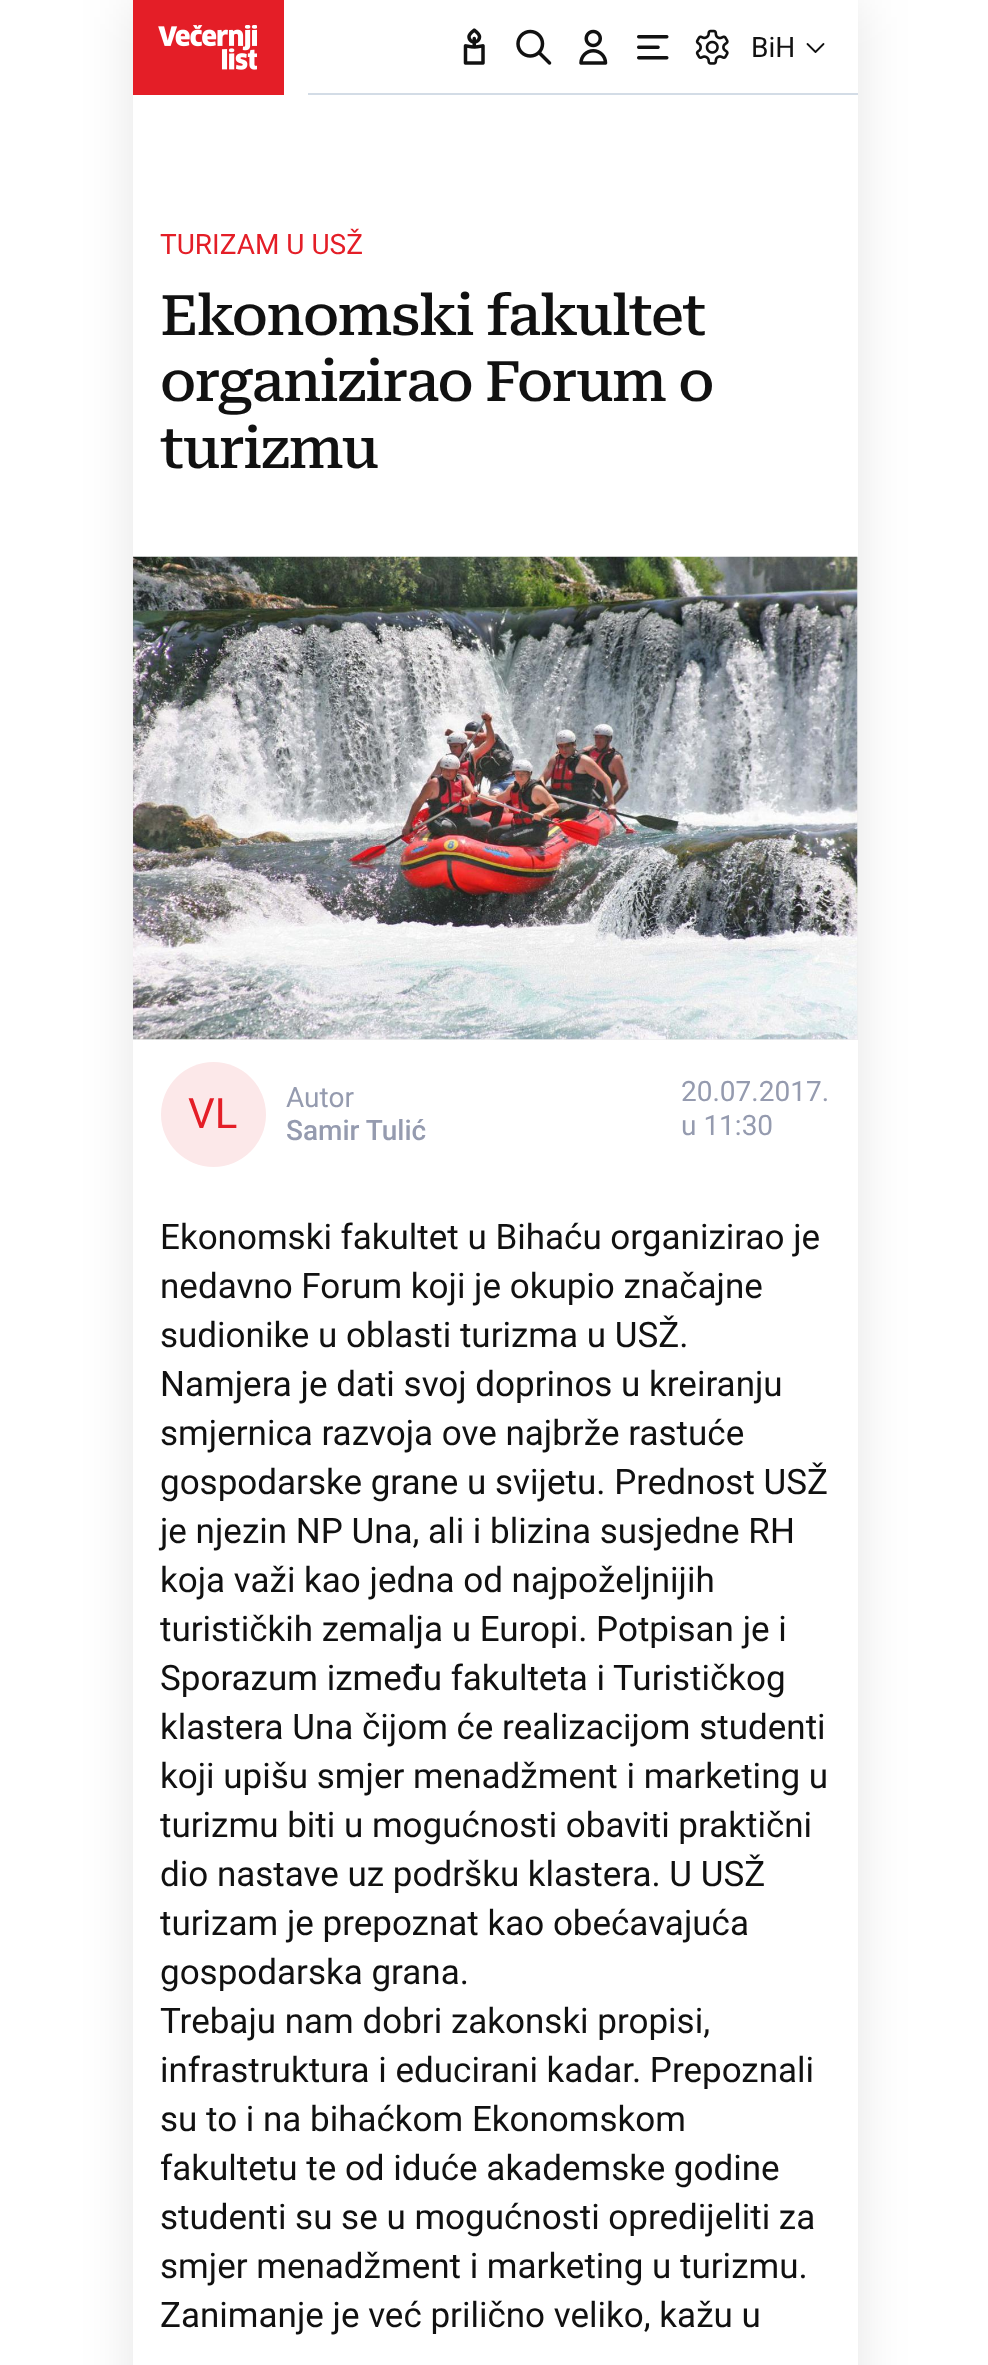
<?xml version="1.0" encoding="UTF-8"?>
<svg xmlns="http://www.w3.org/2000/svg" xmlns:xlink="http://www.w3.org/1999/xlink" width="988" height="2365">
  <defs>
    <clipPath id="clip1"><path d="M 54 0 h 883 v 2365 h -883 z m 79 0 h 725 v 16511 h -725 z" clip-rule="evenodd" /></clipPath>
  </defs>
  <rect width="100%" height="100%" fill="#ffffff" />
  <g clip-path="url(#clip1)">
    <rect x="133" width="725" height="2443" fill="#000000" fill-opacity="0.1" filter="blur(26px)" />
  </g>
  <rect x="857" width="1" height="95" fill="#ffffff" />
  <rect x="133" width="151" height="95" fill="#e41e27" />
  <image x="158" y="25" width="99" height="45" xlink:href="image1.png" />
  <image x="463" y="28" width="22" height="37" xlink:href="image2.png" />
  <image x="516" y="29" width="36" height="36" xlink:href="image3.png" />
  <image x="579" y="29" width="29" height="36" xlink:href="image4.png" />
  <image x="637" y="35" width="32" height="25" xlink:href="image5.png" />
  <image x="695" y="29" width="34" height="36" xlink:href="image6.png" />
  <path d="M 823.5 44 l -8 8 l -8 -8" fill="none" stroke="#111111" stroke-width="1.8" stroke-linecap="round" stroke-linejoin="round" />
  <rect x="308" y="93" width="550" height="2" fill="#d3dce6" />
  <rect x="133" y="557" width="725" height="483" fill="#eeeeee" />
  <image x="133" y="556" width="725" height="484" xlink:href="image7.png" />
  <circle cx="213.5" cy="1114.5" r="52.5" fill="#fce8e9" />
  <text x="751" y="57" style="font-family: Roboto; font-size: 28px; fill: #111111">BiH</text>
  <text x="160" y="254" style="font-family: Roboto; font-size: 28px; fill: #e41e27">TURIZAM U USŽ</text>
  <text x="160" y="335" style="font-family: Roboto Serif; font-size: 56px; font-weight: 500; letter-spacing: -1.7px; fill: #111111">Ekonomski fakultet</text>
  <text x="160" y="401" style="font-family: Roboto Serif; font-size: 56px; font-weight: 500; letter-spacing: -1.7px; fill: #111111">organizirao Forum o</text>
  <text x="160" y="468" style="font-family: Roboto Serif; font-size: 56px; font-weight: 500; letter-spacing: -1.7px; fill: #111111">turizmu</text>
  <text x="188" y="1128" style="font-family: Roboto; font-size: 42px; fill: #e41e27">VL</text>
  <text x="286" y="1107" style="font-family: Roboto; font-size: 28px; fill: #959baf">Autor</text>
  <text x="286" y="1140" style="font-family: Roboto; font-size: 28px; font-weight: 500; fill: #959baf">Samir Tulić</text>
  <text x="681" y="1101" style="font-family: Roboto; font-size: 28px; fill: #959baf">20.07.2017.</text>
  <text x="681" y="1135" style="font-family: Roboto; font-size: 28px; fill: #959baf">u 11:30</text>
  <text x="160" y="1249" style="font-family: Roboto; font-size: 35px; fill: #111111">Ekonomski fakultet u Bihaću organizirao je</text>
  <text x="160" y="1298" style="font-family: Roboto; font-size: 35px; fill: #111111">nedavno Forum koji je okupio značajne</text>
  <text x="160" y="1347" style="font-family: Roboto; font-size: 35px; fill: #111111">sudionike u oblasti turizma u USŽ.</text>
  <text x="160" y="1396" style="font-family: Roboto; font-size: 35px; fill: #111111">Namjera je dati svoj doprinos u kreiranju</text>
  <text x="160" y="1445" style="font-family: Roboto; font-size: 35px; fill: #111111">smjernica razvoja ove najbrže rastuće</text>
  <text x="160" y="1494" style="font-family: Roboto; font-size: 35px; fill: #111111">gospodarske grane u svijetu. Prednost USŽ</text>
  <text x="160" y="1543" style="font-family: Roboto; font-size: 35px; fill: #111111">je njezin NP Una, ali i blizina susjedne RH</text>
  <text x="160" y="1592" style="font-family: Roboto; font-size: 35px; fill: #111111">koja važi kao jedna od najpoželjnijih</text>
  <text x="160" y="1641" style="font-family: Roboto; font-size: 35px; fill: #111111">turističkih zemalja u Europi. Potpisan je i</text>
  <text x="160" y="1690" style="font-family: Roboto; font-size: 35px; fill: #111111">Sporazum između fakulteta i Turističkog</text>
  <text x="160" y="1739" style="font-family: Roboto; font-size: 35px; fill: #111111">klastera Una čijom će realizacijom studenti</text>
  <text x="160" y="1788" style="font-family: Roboto; font-size: 35px; fill: #111111">koji upišu smjer menadžment i marketing u</text>
  <text x="160" y="1837" style="font-family: Roboto; font-size: 35px; fill: #111111">turizmu biti u mogućnosti obaviti praktični</text>
  <text x="160" y="1886" style="font-family: Roboto; font-size: 35px; fill: #111111">dio nastave uz podršku klastera. U USŽ</text>
  <text x="160" y="1935" style="font-family: Roboto; font-size: 35px; fill: #111111">turizam je prepoznat kao obećavajuća</text>
  <text x="160" y="1984" style="font-family: Roboto; font-size: 35px; fill: #111111">gospodarska grana.</text>
  <text x="160" y="2033" style="font-family: Roboto; font-size: 35px; fill: #111111">Trebaju nam dobri zakonski propisi,</text>
  <text x="160" y="2082" style="font-family: Roboto; font-size: 35px; fill: #111111">infrastruktura i educirani kadar. Prepoznali</text>
  <text x="160" y="2131" style="font-family: Roboto; font-size: 35px; fill: #111111">su to i na bihaćkom Ekonomskom</text>
  <text x="160" y="2180" style="font-family: Roboto; font-size: 35px; fill: #111111">fakultetu te od iduće akademske godine</text>
  <text x="160" y="2229" style="font-family: Roboto; font-size: 35px; fill: #111111">studenti su se u mogućnosti opredijeliti za</text>
  <text x="160" y="2278" style="font-family: Roboto; font-size: 35px; fill: #111111">smjer menadžment i marketing u turizmu.</text>
  <text x="160" y="2327" style="font-family: Roboto; font-size: 35px; fill: #111111">Zanimanje je već prilično veliko, kažu u</text>
</svg>
